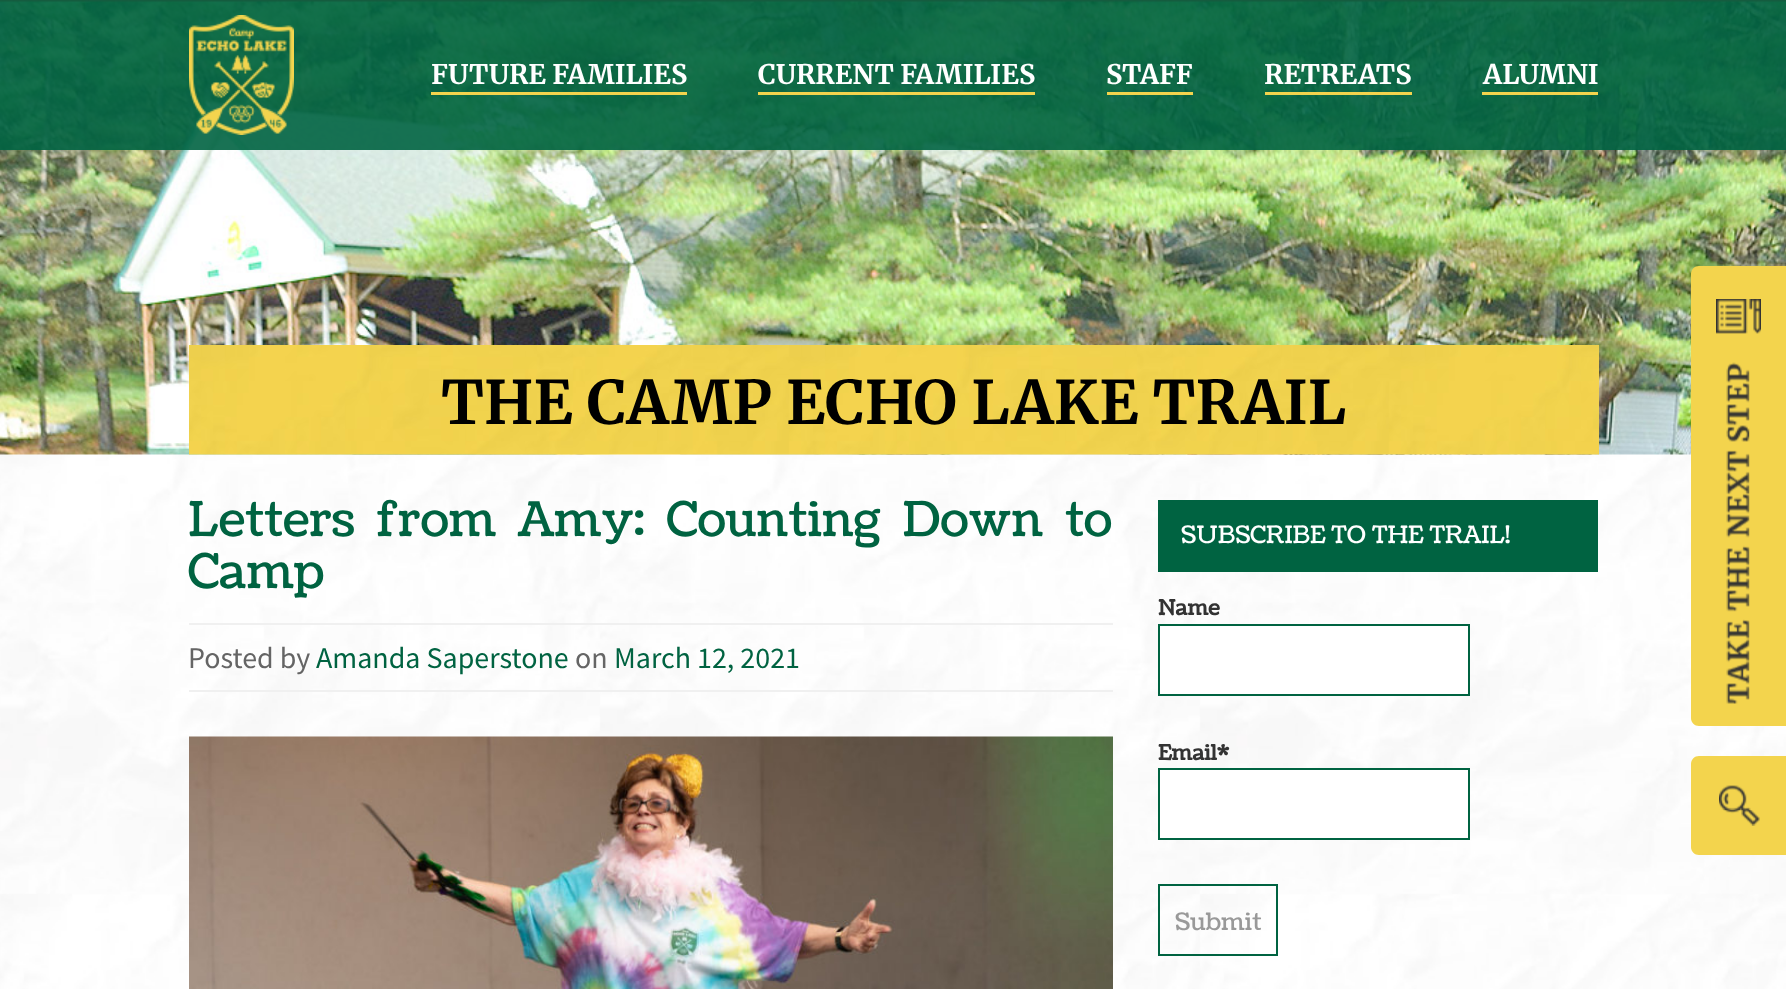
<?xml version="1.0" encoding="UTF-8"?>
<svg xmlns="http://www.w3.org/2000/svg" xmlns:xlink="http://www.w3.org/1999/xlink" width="1786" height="989">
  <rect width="100%" height="100%" fill="#ffffff" />
  <image x="0" y="454" width="1786" height="535" xlink:href="image1.png" />
  <image x="0" y="0" width="1786" height="455" xlink:href="image2.png" />
  <rect width="1786" height="150" fill="#006341" fill-opacity="0.9" />
  <image x="189" y="15" width="105" height="120" xlink:href="image3.png" />
  <rect x="431" y="92" width="256" height="3" fill="#f3d34d" />
  <rect x="758" y="92" width="277" height="3" fill="#f3d34d" />
  <rect x="1107" y="92" width="86" height="3" fill="#f3d34d" />
  <rect x="1265" y="92" width="147" height="3" fill="#f3d34d" />
  <rect x="1482" y="92" width="116" height="3" fill="#f3d34d" />
  <image x="189" y="345" width="1410" height="110" xlink:href="image4.png" />
  <rect x="189" y="623" width="924" height="2" fill="#f0f0f0" />
  <rect x="189" y="690" width="924" height="2" fill="#f0f0f0" />
  <image x="189" y="736" width="924" height="253" xlink:href="image5.png" />
  <rect x="1158" y="500" width="440" height="72" fill="#006341" />
  <rect x="1159" y="625" width="310" height="70" fill="#ffffff" stroke="#006341" stroke-width="2" />
  <rect x="1159" y="769" width="310" height="70" fill="#ffffff" stroke="#006341" stroke-width="2" />
  <rect x="1159" y="885" width="118" height="70" fill="none" stroke="#006341" stroke-width="2" />
  <path d="M 1699 266 h 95 v 460 h -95 c -4.5 0 -8 -3.5 -8 -8 v -444 c 0 -4.5 3.5 -8 8 -8 z" fill="#f3d44d" />
  <image x="1716" y="299" width="45" height="35" xlink:href="image6.png" />
  <image x="1726" y="362" width="24" height="342" xlink:href="image7.png" />
  <path d="M 1699 756 h 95 v 99 h -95 c -4.5 0 -8 -3.5 -8 -8 v -83 c 0 -4.5 3.5 -8 8 -8 z" fill="#f3d44d" />
  <image x="1719" y="785" width="41" height="41" xlink:href="image8.png" />
  <text x="431" y="84" style="font-family: Merriweather; font-size: 27px; font-weight: bold; fill: #ffffff">FUTURE FAMILIES</text>
  <text x="758" y="84" style="font-family: Merriweather; font-size: 27px; font-weight: bold; fill: #ffffff">CURRENT FAMILIES</text>
  <text x="1106" y="84" style="font-family: Merriweather; font-size: 27px; font-weight: bold; fill: #ffffff">STAFF</text>
  <text x="1264" y="84" style="font-family: Merriweather; font-size: 27px; font-weight: bold; fill: #ffffff">RETREATS</text>
  <text x="1483" y="84" style="font-family: Merriweather; font-size: 27px; font-weight: bold; fill: #ffffff">ALUMNI</text>
  <text x="441" y="424" style="font-family: Merriweather; font-size: 60px; font-weight: bold; fill: #000000">THE CAMP ECHO LAKE TRAIL</text>
  <text x="188" y="536" word-spacing="10" style="font-family: Coustard; font-size: 48px; fill: #006341">Letters from Amy: Counting Down to</text>
  <text x="188" y="588" style="font-family: Coustard; font-size: 48px; fill: #006341">Camp</text>
  <text x="188" y="668" style="font-family: Source Sans Pro; font-size: 30px; fill: #656565">Posted by</text>
  <text x="316" y="668" style="font-family: Source Sans Pro; font-size: 30px; fill: #006341">Amanda Saperstone</text>
  <text x="575" y="668" style="font-family: Source Sans Pro; font-size: 30px; fill: #656565">on</text>
  <text x="614" y="668" style="font-family: Source Sans Pro; font-size: 30px; fill: #006341">March 12, 2021</text>
  <text x="1181" y="543" style="font-family: Coustard; font-size: 24px; fill: #ffffff">SUBSCRIBE TO THE TRAIL!</text>
  <text x="1158" y="615" style="font-family: Coustard; font-size: 21px; font-weight: bold; fill: #333333">Name</text>
  <text x="1158" y="760" style="font-family: Coustard; font-size: 21px; font-weight: bold; fill: #333333">Email*</text>
  <text x="1175" y="930" style="font-family: Coustard; font-size: 24px; fill: #999999">Submit</text>
</svg>
